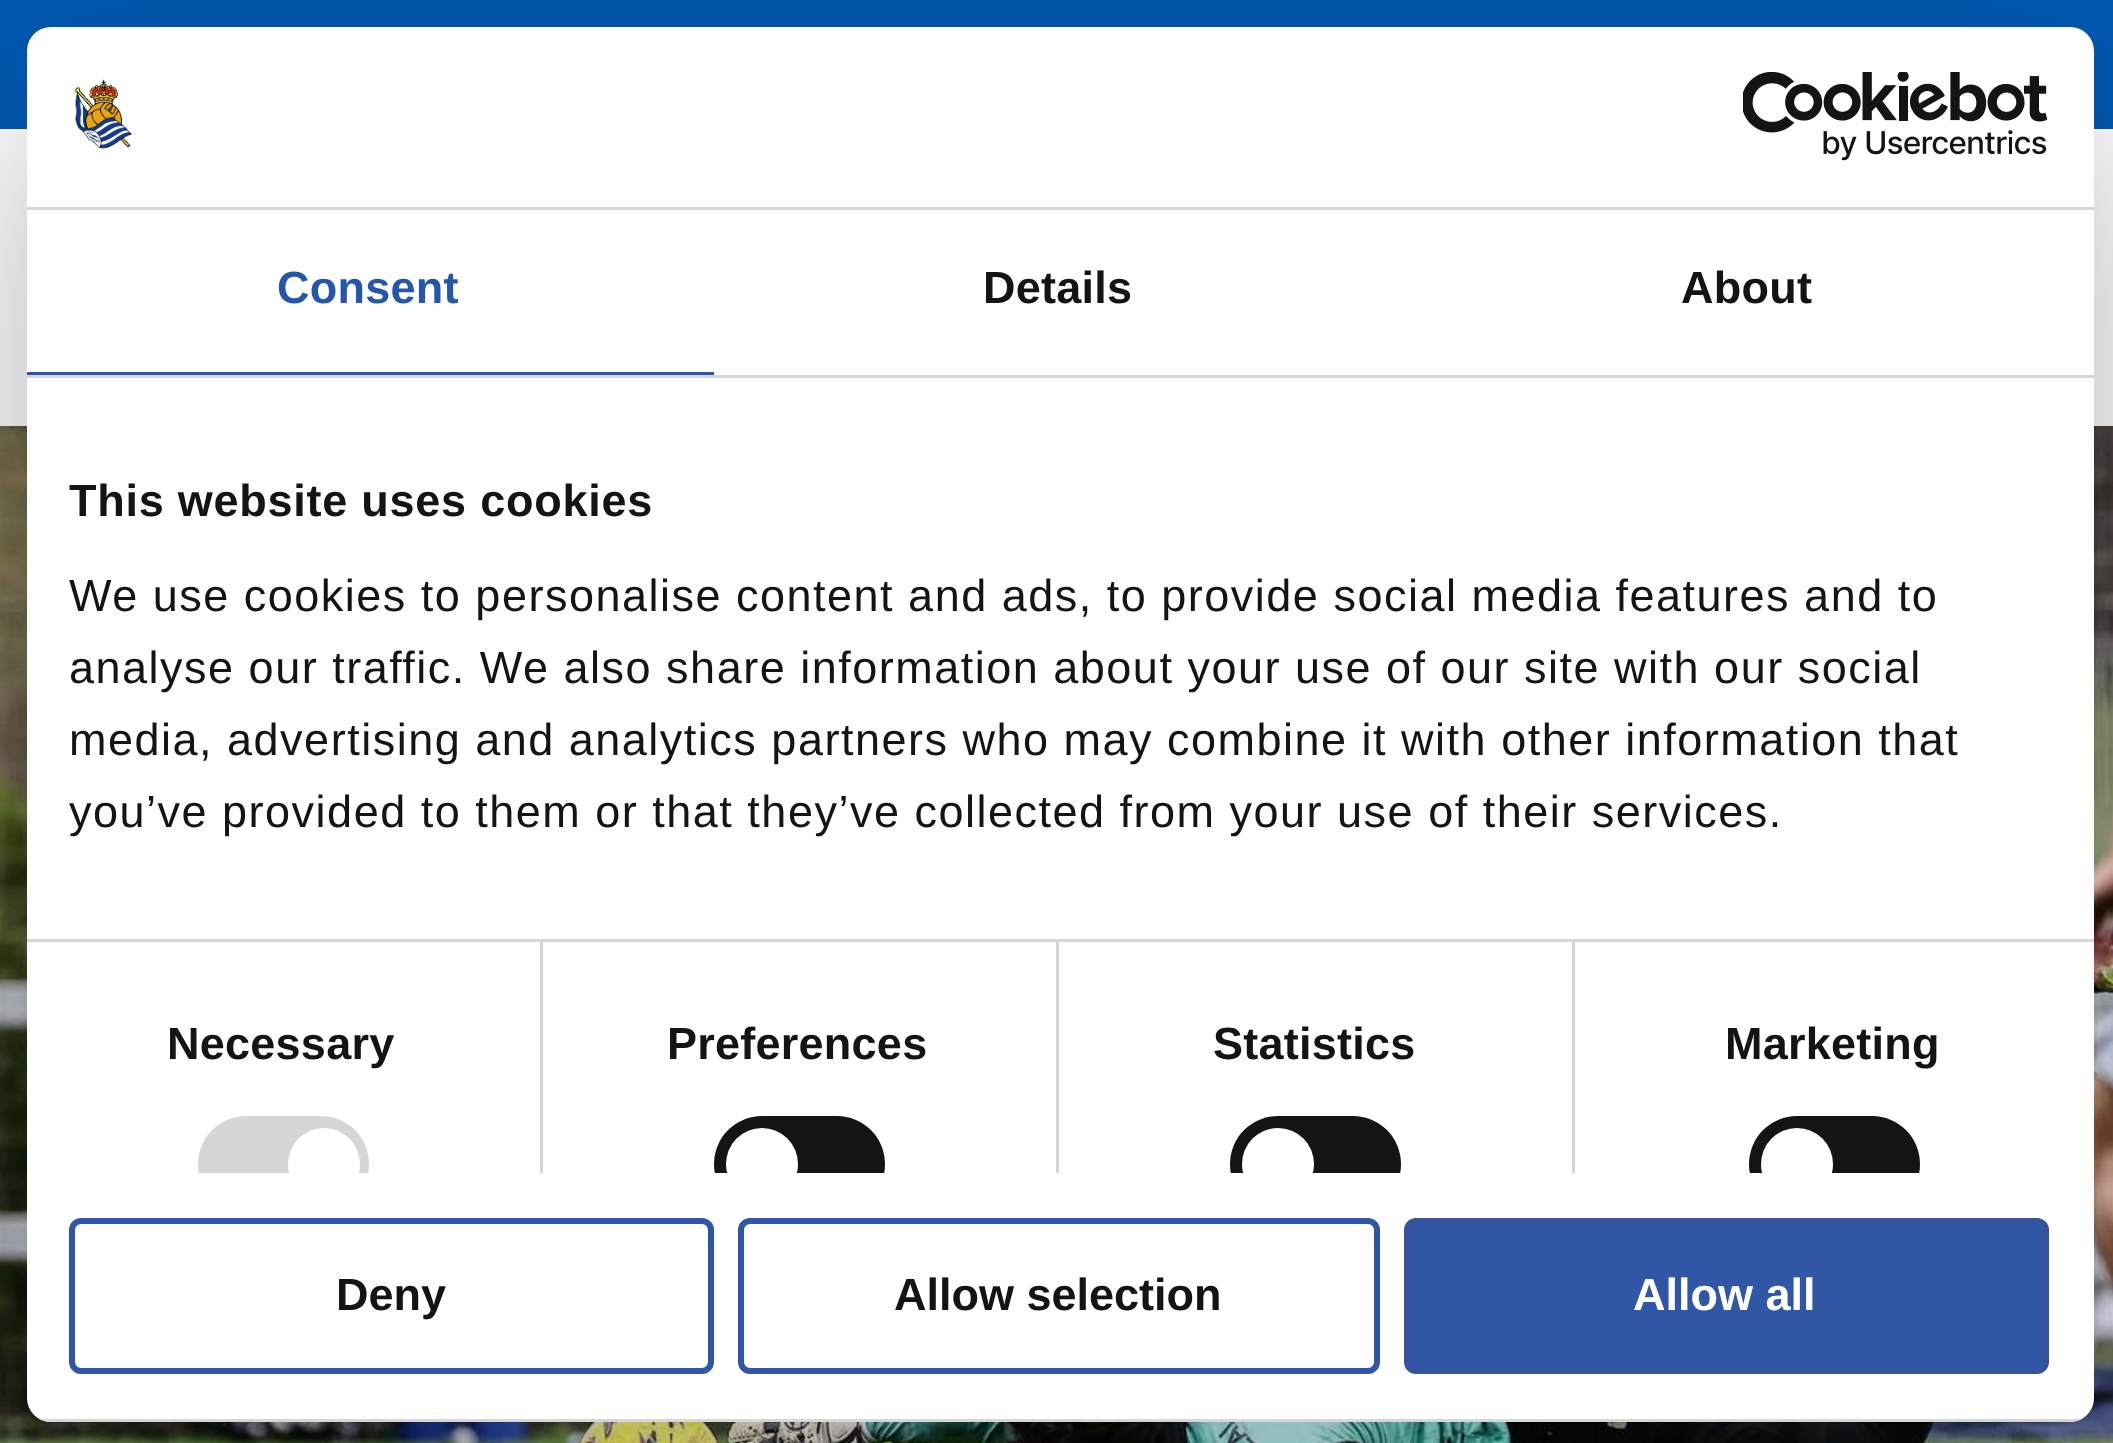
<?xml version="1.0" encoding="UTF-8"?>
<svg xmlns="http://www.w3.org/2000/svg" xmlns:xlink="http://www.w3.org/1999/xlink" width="2113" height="1443">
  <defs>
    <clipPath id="clip1"><path d="M 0 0 h 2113 v 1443 h -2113 z m 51 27 h 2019 c 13.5 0 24 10.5 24 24 v 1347 c 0 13.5 -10.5 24 -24 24 h -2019 c -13.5 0 -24 -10.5 -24 -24 v -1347 c 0 -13.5 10.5 -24 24 -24 z" clip-rule="evenodd" /></clipPath>
    <clipPath id="clip2"><rect x="27" y="378" width="2067" height="795" /></clipPath>
    <clipPath id="clip3"><rect x="27" y="27" width="2067" height="1395" rx="24" /></clipPath>
  </defs>
  <rect width="100%" height="100%" fill="#ffffff" />
  <rect width="2113" height="129" fill="#0058b1" />
  <image x="0" y="426" width="2113" height="1017" xlink:href="image3.png" />
  <g clip-path="url(#clip1)">
    <rect x="27" y="123" width="2067" height="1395" rx="24" fill="#000000" fill-opacity="0.3" filter="blur(102px)" />
  </g>
  <rect x="27" y="27" width="2067" height="1395" rx="24" fill="#ffffff" />
  <rect x="27" y="207" width="2067" height="3" fill="#d6d6d6" />
  <image x="74" y="79" width="58" height="70" xlink:href="image1.png" />
  <image x="1743" y="72" width="305" height="89" xlink:href="image2.png" />
  <rect x="27" y="375" width="2067" height="3" fill="#d6d6d6" />
  <rect x="27" y="372" width="687" height="3" fill="#2457ab" />
  <rect x="27" y="939" width="2067" height="3" fill="#d6d6d6" />
  <rect x="540" y="942" width="3" height="231" fill="#d6d6d6" />
  <g clip-path="url(#clip2)">
    <rect x="198" y="1116" width="171" height="96" rx="48" fill="#d6d6d6" />
    <circle cx="324" cy="1164" r="36" fill="#ffffff" />
  </g>
  <rect x="1056" y="942" width="3" height="231" fill="#d6d6d6" />
  <g clip-path="url(#clip2)">
    <rect x="714" y="1116" width="171" height="96" rx="48" fill="#141414" />
    <circle cx="762" cy="1164" r="36" fill="#ffffff" />
  </g>
  <rect x="1572" y="942" width="3" height="231" fill="#d6d6d6" />
  <g clip-path="url(#clip2)">
    <rect x="1230" y="1116" width="171" height="96" rx="48" fill="#141414" />
    <circle cx="1278" cy="1164" r="36" fill="#ffffff" />
    <rect x="1749" y="1116" width="171" height="96" rx="48" fill="#141414" />
    <circle cx="1797" cy="1164" r="36" fill="#ffffff" />
  </g>
  <g clip-path="url(#clip3)">
    <rect x="39" y="1419" width="2043" height="3" fill="#d6d6d6" />
  </g>
  <rect x="72" y="1221" width="639" height="150" rx="9" fill="none" stroke="#3156a5" stroke-width="6" />
  <rect x="741" y="1221" width="636" height="150" rx="9" fill="none" stroke="#3156a5" stroke-width="6" />
  <rect x="1407" y="1221" width="639" height="150" rx="9" fill="#3156a5" stroke="#38539d" stroke-width="6" />
  <text x="277" y="303" style="font-family: Liberation Sans; font-size: 45px; font-weight: bold; letter-spacing: 0.25px; fill: #2457ab">Consent</text>
  <text x="983" y="303" style="font-family: Liberation Sans; font-size: 45px; font-weight: bold; letter-spacing: 0.25px; fill: #141414">Details</text>
  <text x="1681" y="303" style="font-family: Liberation Sans; font-size: 45px; font-weight: bold; letter-spacing: 0.25px; fill: #141414">About</text>
  <text x="69" y="516" style="font-family: Liberation Sans; font-size: 45px; font-weight: bold; letter-spacing: 0.75px; fill: #141414">This website uses cookies</text>
  <text x="69" y="611" style="font-family: Liberation Sans; font-size: 45px; letter-spacing: 1.5px; fill: #141414">We use cookies to personalise content and ads, to provide social media features and to</text>
  <text x="69" y="683" style="font-family: Liberation Sans; font-size: 45px; letter-spacing: 1.5px; fill: #141414">analyse our traffic. We also share information about your use of our site with our social</text>
  <text x="69" y="755" style="font-family: Liberation Sans; font-size: 45px; letter-spacing: 1.5px; fill: #141414">media, advertising and analytics partners who may combine it with other information that</text>
  <text x="69" y="827" style="font-family: Liberation Sans; font-size: 45px; letter-spacing: 1.5px; fill: #141414">you’ve provided to them or that they’ve collected from your use of their services.</text>
  <text x="167" y="1059" style="font-family: Liberation Sans; font-size: 45px; font-weight: bold; letter-spacing: 0.25px; fill: #141414">Necessary</text>
  <text x="667" y="1059" style="font-family: Liberation Sans; font-size: 45px; font-weight: bold; letter-spacing: 0.25px; fill: #141414">Preferences</text>
  <text x="1213" y="1059" style="font-family: Liberation Sans; font-size: 45px; font-weight: bold; letter-spacing: 0.25px; fill: #141414">Statistics</text>
  <text x="1725" y="1059" style="font-family: Liberation Sans; font-size: 45px; font-weight: bold; letter-spacing: 0.25px; fill: #141414">Marketing</text>
  <text x="336" y="1310" style="font-family: Liberation Sans; font-size: 45px; font-weight: bold; fill: #141414">Deny</text>
  <text x="894" y="1310" style="font-family: Liberation Sans; font-size: 45px; font-weight: bold; fill: #141414">Allow selection</text>
  <text x="1633" y="1310" style="font-family: Liberation Sans; font-size: 45px; font-weight: bold; fill: #ffffff">Allow all</text>
</svg>
